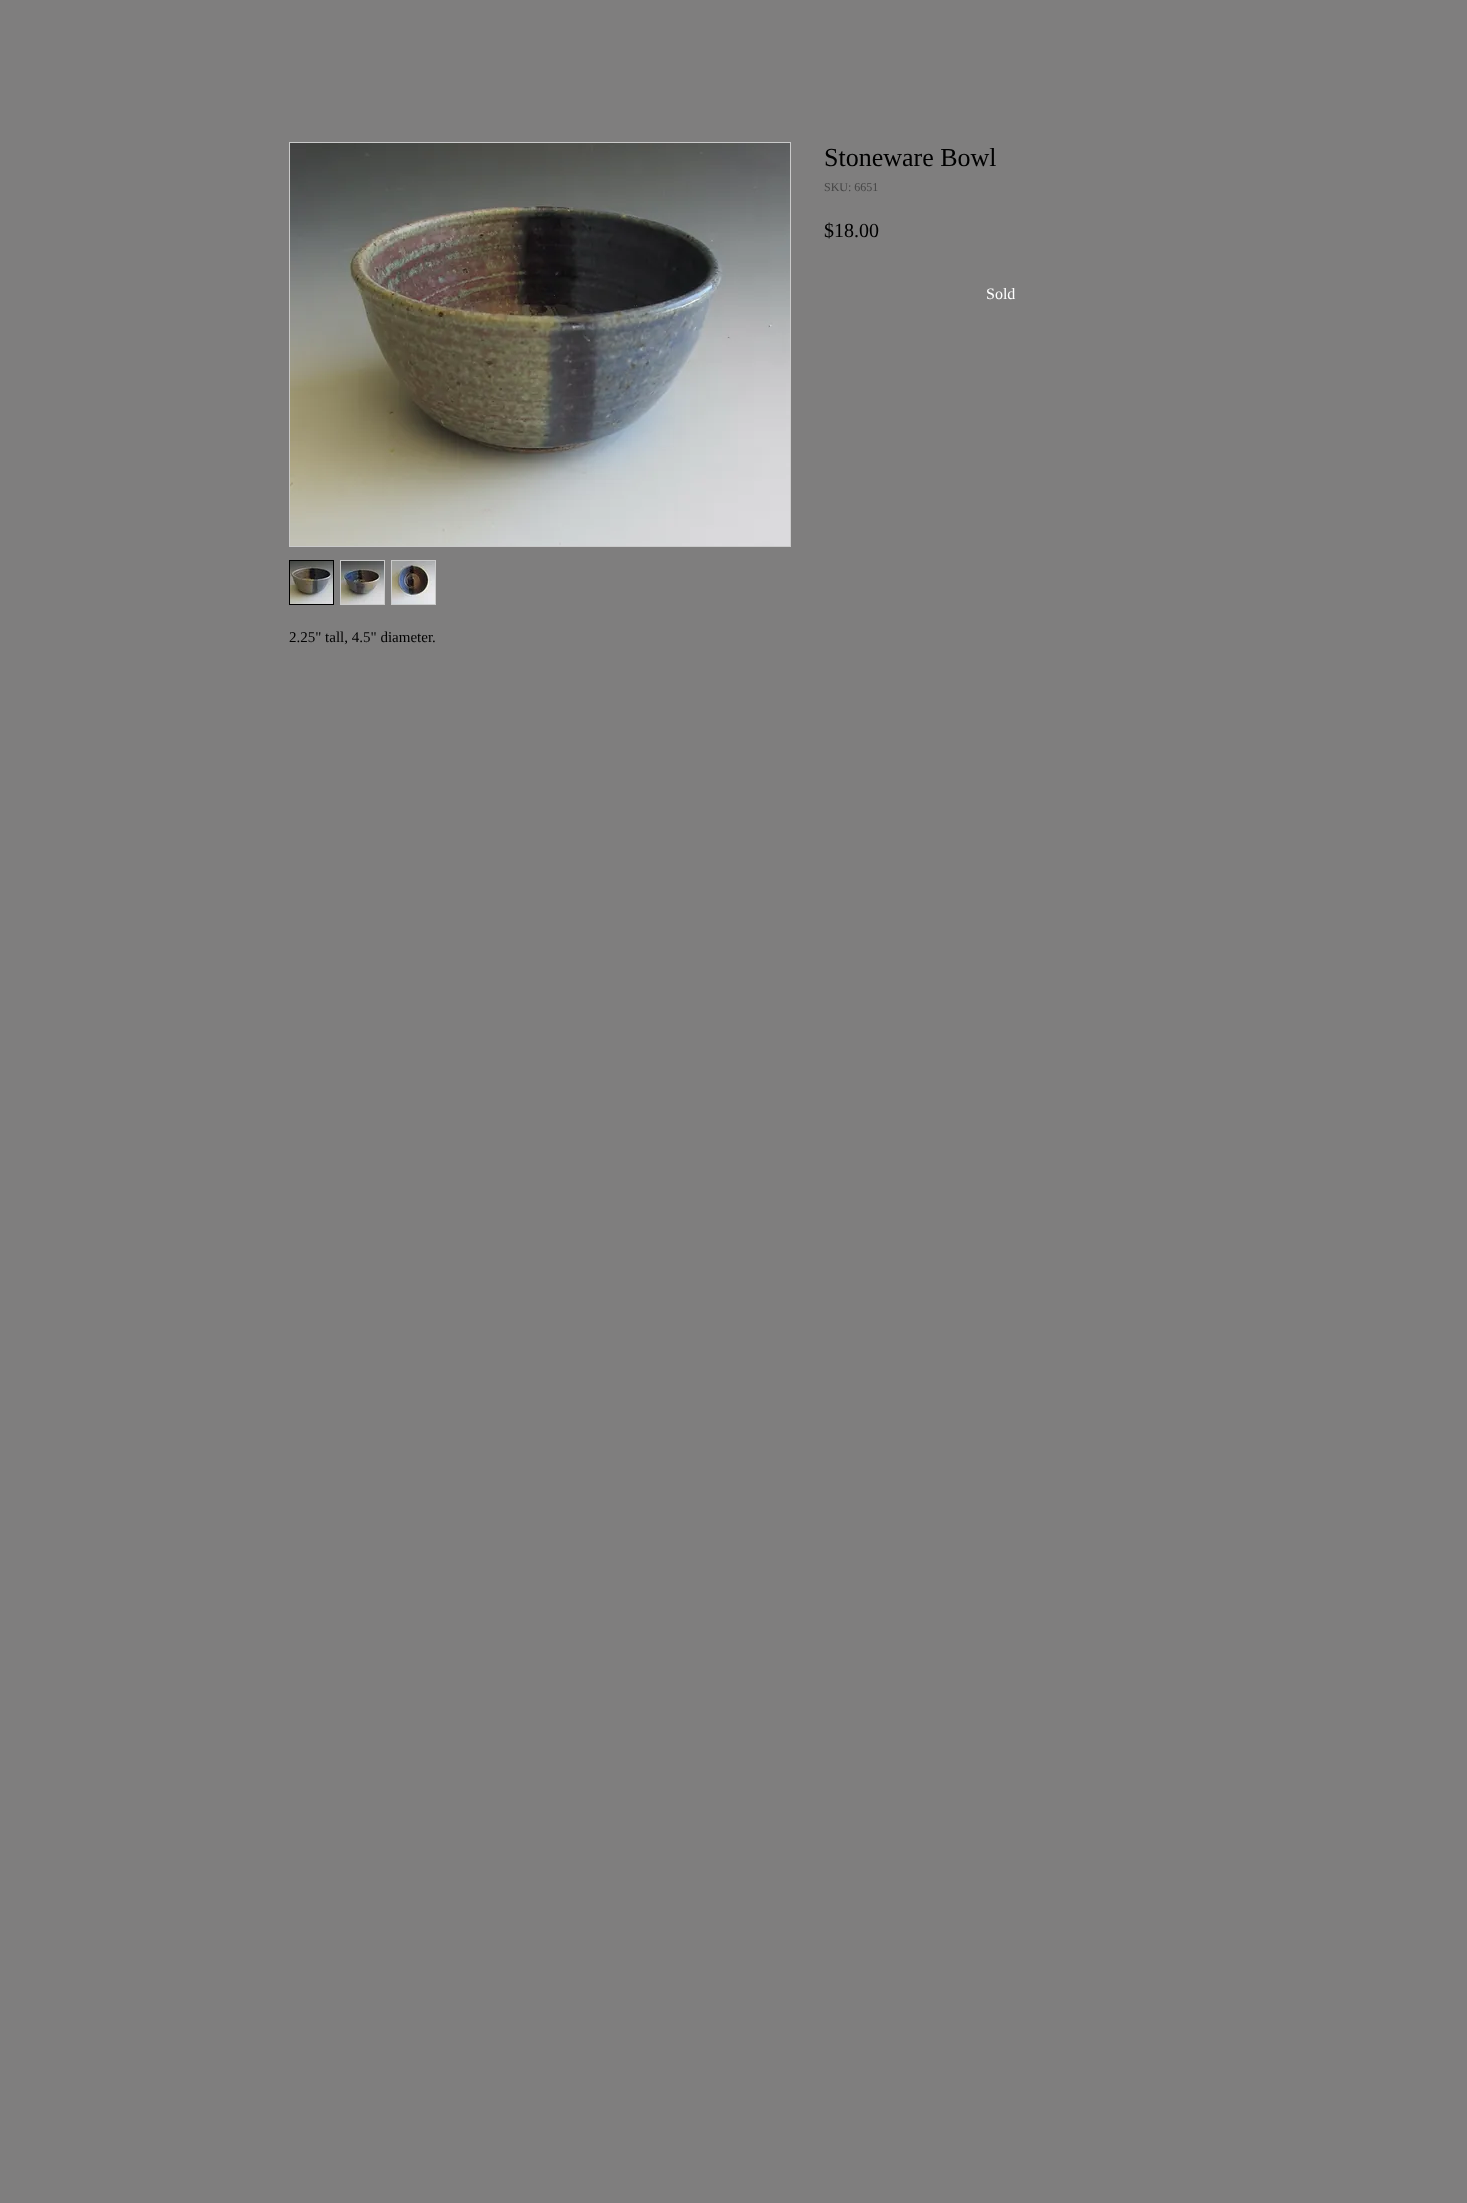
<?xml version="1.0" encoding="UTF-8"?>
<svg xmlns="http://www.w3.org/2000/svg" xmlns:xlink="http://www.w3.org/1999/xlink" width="1467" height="2203">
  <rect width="100%" height="100%" fill="#7f7e7e" />
  <rect x="289.5" y="142.5" width="501" height="404" fill="none" stroke="#cacaca" />
  <image x="290" y="143" width="500" height="403" xlink:href="image1.png" />
  <rect x="289.5" y="560.5" width="44" height="44" fill="none" stroke="#000000" />
  <image x="290" y="561" width="43" height="43" xlink:href="image2.png" />
  <rect x="340" y="560" width="45" height="45" fill="#cacaca" />
  <image x="341" y="561" width="43" height="43" xlink:href="image3.png" />
  <rect x="391" y="560" width="45" height="45" fill="#cacaca" />
  <image x="392" y="561" width="43" height="43" xlink:href="image4.png" />
  <text x="824" y="166" style="font-family: Liberation Serif; font-size: 26px; fill: #000000">Stoneware Bowl</text>
  <text x="824" y="191" style="font-family: Liberation Serif; font-size: 12px; fill: #464646">SKU: 6651</text>
  <text x="824" y="237" style="font-family: Liberation Serif; font-size: 20px; fill: #000000">$18.00</text>
  <text x="986" y="299" style="font-family: Liberation Serif; font-size: 16px; fill: #ffffff">Sold</text>
  <text x="289" y="642" style="font-family: Liberation Serif; font-size: 15px; fill: #000000">2.25" tall, 4.5" diameter.</text>
</svg>
